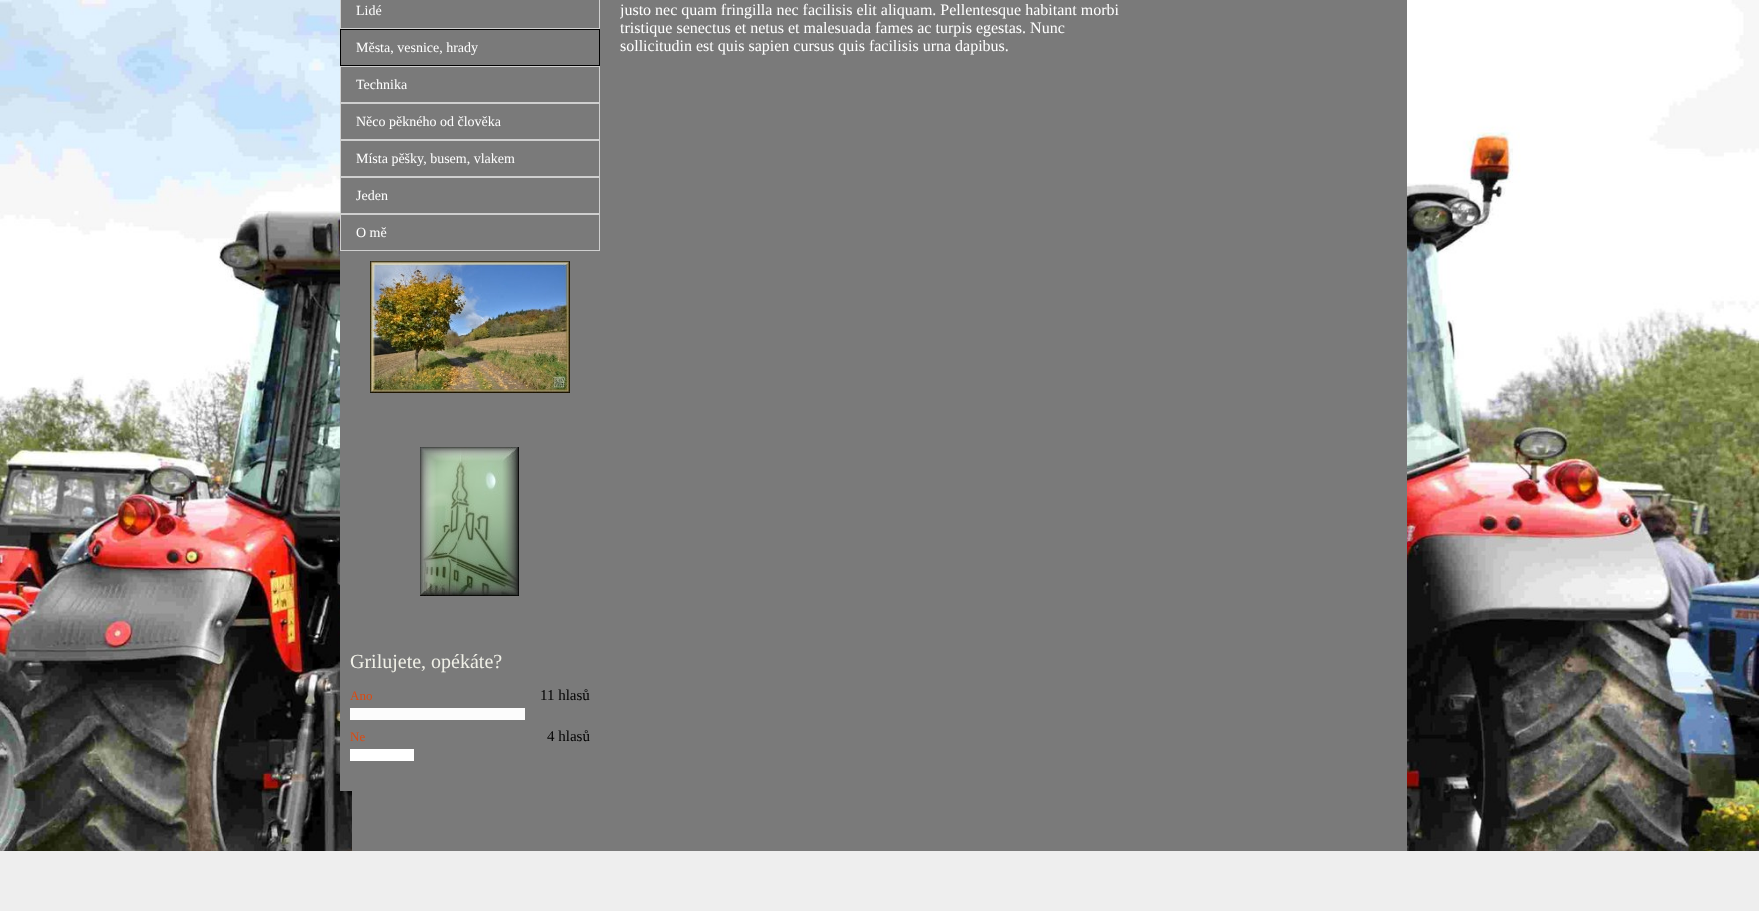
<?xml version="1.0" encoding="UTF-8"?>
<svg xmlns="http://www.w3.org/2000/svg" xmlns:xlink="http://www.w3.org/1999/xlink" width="1759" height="911">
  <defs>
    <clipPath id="clip1"><rect x="620" width="520" height="75" /></clipPath>
  </defs>
  <rect width="100%" height="100%" fill="#eeeeee" />
  <image x="0" y="0" width="1759" height="851" xlink:href="image1.png" />
  <rect x="352" width="1055" height="851" fill="#7a7a7a" />
  <rect x="340" width="12" height="791" fill="#7a7a7a" />
  <rect x="340.5" y="-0.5" width="259" height="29" fill="none" stroke="#cfcfcf" />
  <rect x="340.5" y="29.5" width="259" height="36" fill="none" stroke="#000000" />
  <rect x="340.5" y="66.5" width="259" height="36" fill="none" stroke="#cfcfcf" />
  <rect x="340.5" y="103.5" width="259" height="36" fill="none" stroke="#cfcfcf" />
  <rect x="340.5" y="140.5" width="259" height="36" fill="none" stroke="#cfcfcf" />
  <rect x="340.5" y="177.5" width="259" height="36" fill="none" stroke="#cfcfcf" />
  <rect x="340.5" y="214.5" width="259" height="36" fill="none" stroke="#cfcfcf" />
  <image x="370" y="261" width="200" height="132" xlink:href="image2.png" />
  <image x="420" y="447" width="99" height="149" xlink:href="image3.png" />
  <rect x="350" y="708" width="175" height="12" fill="#fcfcfc" />
  <rect x="350" y="749" width="64" height="12" fill="#ffffff" />
  <text x="356" y="15" style="font-family: Liberation Serif; font-size: 14px; fill: #ffffff">Lidé</text>
  <text x="356" y="52" style="font-family: Liberation Serif; font-size: 14px; fill: #ffffff">Města, vesnice, hrady</text>
  <text x="356" y="89" style="font-family: Liberation Serif; font-size: 14px; fill: #ffffff">Technika</text>
  <text x="356" y="126" style="font-family: Liberation Serif; font-size: 14px; fill: #ffffff">Něco pěkného od člověka</text>
  <text x="356" y="163" style="font-family: Liberation Serif; font-size: 14px; fill: #ffffff">Místa pěšky, busem, vlakem</text>
  <text x="356" y="200" style="font-family: Liberation Serif; font-size: 14px; fill: #ffffff">Jeden</text>
  <text x="356" y="237" style="font-family: Liberation Serif; font-size: 14px; fill: #ffffff">O mě</text>
  <text x="350" y="668" style="font-family: Liberation Serif; font-size: 20px; fill: #f0f0e7">Grilujete, opékáte?</text>
  <text x="350" y="700" style="font-family: Liberation Serif; font-size: 13px; fill: #db4a11">Ano</text>
  <text x="540" y="700" style="font-family: Liberation Serif; font-size: 15px; fill: #000000">11 hlasů</text>
  <text x="350" y="741" style="font-family: Liberation Serif; font-size: 13px; fill: #db4a11">Ne</text>
  <text x="547" y="741" style="font-family: Liberation Serif; font-size: 15px; fill: #000000">4 hlasů</text>
  <g clip-path="url(#clip1)">
    <text x="620" y="15" style="font-family: Liberation Serif; font-size: 16px; fill: #ffffff">justo nec quam fringilla nec facilisis elit aliquam. Pellentesque habitant morbi</text>
  </g>
  <text x="620" y="33" style="font-family: Liberation Serif; font-size: 16px; fill: #ffffff">tristique senectus et netus et malesuada fames ac turpis egestas. Nunc</text>
  <text x="620" y="51" style="font-family: Liberation Serif; font-size: 16px; fill: #ffffff">sollicitudin est quis sapien cursus quis facilisis urna dapibus.</text>
</svg>
